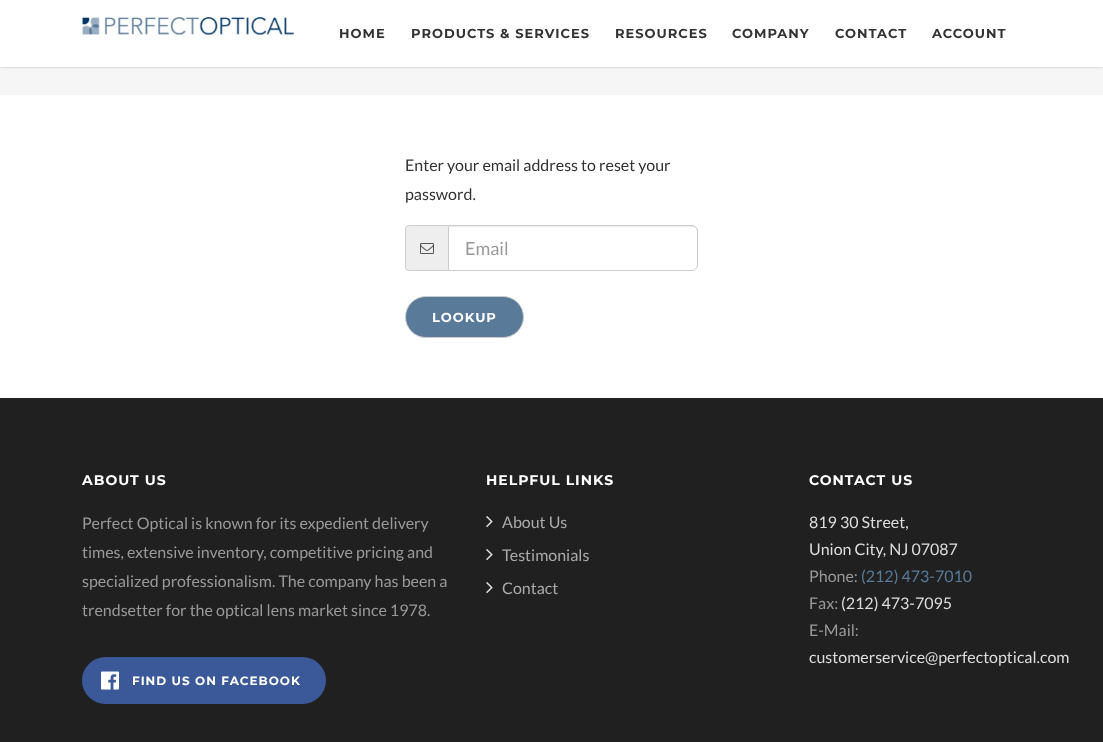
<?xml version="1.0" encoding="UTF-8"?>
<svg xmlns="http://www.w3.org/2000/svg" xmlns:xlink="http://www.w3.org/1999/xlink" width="1103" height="742">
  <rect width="100%" height="100%" fill="#ffffff" />
  <rect y="67" width="1103" height="28" fill="#f6f6f6" />
  <rect width="1103" height="67" fill="#000000" fill-opacity="0.22" filter="blur(1.5px)" />
  <rect width="1103" height="67" fill="#ffffff" />
  <image x="81" y="17" width="213" height="18" xlink:href="image1.png" />
  <path d="M 409 225 h 39 v 46 h -39 c -2 0 -4 -2 -4 -4 v -38 c 0 -2 2 -4 4 -4 z" fill="#eeeeee" />
  <path d="M 409 225 h 39 v 46 h -39 c -2 0 -4 -2 -4 -4 v -38 c 0 -2 2 -4 4 -4 z m 0 1 h 39 v 44 h -39 c -2 0 -3 -1 -3 -3 v -38 c 0 -2 1 -3 3 -3 z" fill="#cccccc" fill-rule="evenodd" />
  <image x="420" y="243" width="14" height="11" xlink:href="image2.png" />
  <path d="M 449 227 h 243 c 3 0 5 2 5 5 v -1 c 0 -3 -2 -5 -5 -5 h -243 z" fill="#ececec" />
  <path d="M 448.5 225.5 h 243.5 c 3 0 5.5 2.5 5.5 5.5 v 34 c 0 3 -2.5 5.5 -5.5 5.5 h -243.5 z" fill="none" stroke="#cccccc" />
  <rect x="405.5" y="296.5" width="118" height="41" rx="20.5" fill="#597b99" stroke="#cccccc" />
  <rect y="398" width="1103" height="344" fill="#202020" />
  <rect x="82" y="657" width="244" height="47" rx="23.5" fill="#3b5998" />
  <image x="101" y="671" width="18" height="19" xlink:href="image3.png" />
  <image x="486" y="516" width="7" height="12" xlink:href="image4.png" />
  <image x="486" y="549" width="7" height="12" xlink:href="image4.png" />
  <image x="486" y="582" width="7" height="12" xlink:href="image4.png" />
  <text x="339" y="38" style="font-family: Montserrat; font-size: 13px; font-weight: bold; letter-spacing: 1px; fill: #333333">HOME</text>
  <text x="411" y="38" style="font-family: Montserrat; font-size: 13px; font-weight: bold; letter-spacing: 1px; fill: #333333">PRODUCTS &amp; SERVICES</text>
  <text x="615" y="38" style="font-family: Montserrat; font-size: 13px; font-weight: bold; letter-spacing: 1px; fill: #333333">RESOURCES</text>
  <text x="732" y="38" style="font-family: Montserrat; font-size: 13px; font-weight: bold; letter-spacing: 1px; fill: #333333">COMPANY</text>
  <text x="835" y="38" style="font-family: Montserrat; font-size: 13px; font-weight: bold; letter-spacing: 1px; fill: #333333">CONTACT</text>
  <text x="932" y="38" style="font-family: Montserrat; font-size: 13px; font-weight: bold; letter-spacing: 1px; fill: #333333">ACCOUNT</text>
  <text x="405" y="171" style="font-family: Lato; font-size: 16px; fill: #333333">Enter your email address to reset your</text>
  <text x="405" y="200" style="font-family: Lato; font-size: 16px; fill: #333333">password.</text>
  <text x="465" y="255" style="font-family: Lato; font-size: 18px; fill: #999999">Email</text>
  <text x="432" y="322" style="font-family: Montserrat; font-size: 13px; font-weight: bold; letter-spacing: 1px; fill: #ffffff">LOOKUP</text>
  <text x="82" y="485" style="font-family: Montserrat; font-size: 14px; font-weight: bold; letter-spacing: 1px; fill: #ffffff">ABOUT US</text>
  <text x="82" y="529" style="font-family: Lato; font-size: 16px; fill: #999999">Perfect Optical is known for its expedient delivery</text>
  <text x="82" y="558" style="font-family: Lato; font-size: 16px; fill: #999999">times, extensive inventory, competitive pricing and</text>
  <text x="82" y="587" style="font-family: Lato; font-size: 16px; fill: #999999">specialized professionalism. The company has been a</text>
  <text x="82" y="616" style="font-family: Lato; font-size: 16px; fill: #999999">trendsetter for the optical lens market since 1978.</text>
  <text x="132" y="685" style="font-family: Montserrat; font-size: 12px; font-weight: bold; letter-spacing: 1px; fill: #ffffff">FIND US ON FACEBOOK</text>
  <text x="486" y="485" style="font-family: Montserrat; font-size: 14px; font-weight: bold; letter-spacing: 1px; fill: #ffffff">HELPFUL LINKS</text>
  <text x="502" y="528" style="font-family: Lato; font-size: 16px; fill: #aaaaaa">About Us</text>
  <text x="502" y="561" style="font-family: Lato; font-size: 16px; fill: #aaaaaa">Testimonials</text>
  <text x="502" y="594" style="font-family: Lato; font-size: 16px; fill: #aaaaaa">Contact</text>
  <text x="809" y="485" style="font-family: Montserrat; font-size: 14px; font-weight: bold; letter-spacing: 1px; fill: #ffffff">CONTACT US</text>
  <text x="809" y="528" style="font-family: Lato; font-size: 16px; fill: #dddddd">819 30 Street,</text>
  <text x="809" y="555" style="font-family: Lato; font-size: 16px; fill: #dddddd">Union City, NJ 07087</text>
  <text x="809" y="582" style="font-family: Lato; font-size: 16px; fill: #999999">Phone:</text>
  <text x="861" y="582" style="font-family: Lato; font-size: 16px; fill: #597b99">(212) 473-7010</text>
  <text x="809" y="609" style="font-family: Lato; font-size: 16px; fill: #999999">Fax:</text>
  <text x="841" y="609" style="font-family: Lato; font-size: 16px; fill: #dddddd">(212) 473-7095</text>
  <text x="809" y="636" style="font-family: Lato; font-size: 16px; fill: #999999">E-Mail:</text>
  <text x="809" y="663" style="font-family: Lato; font-size: 16px; fill: #dddddd">customerservice@perfectoptical.com</text>
</svg>
